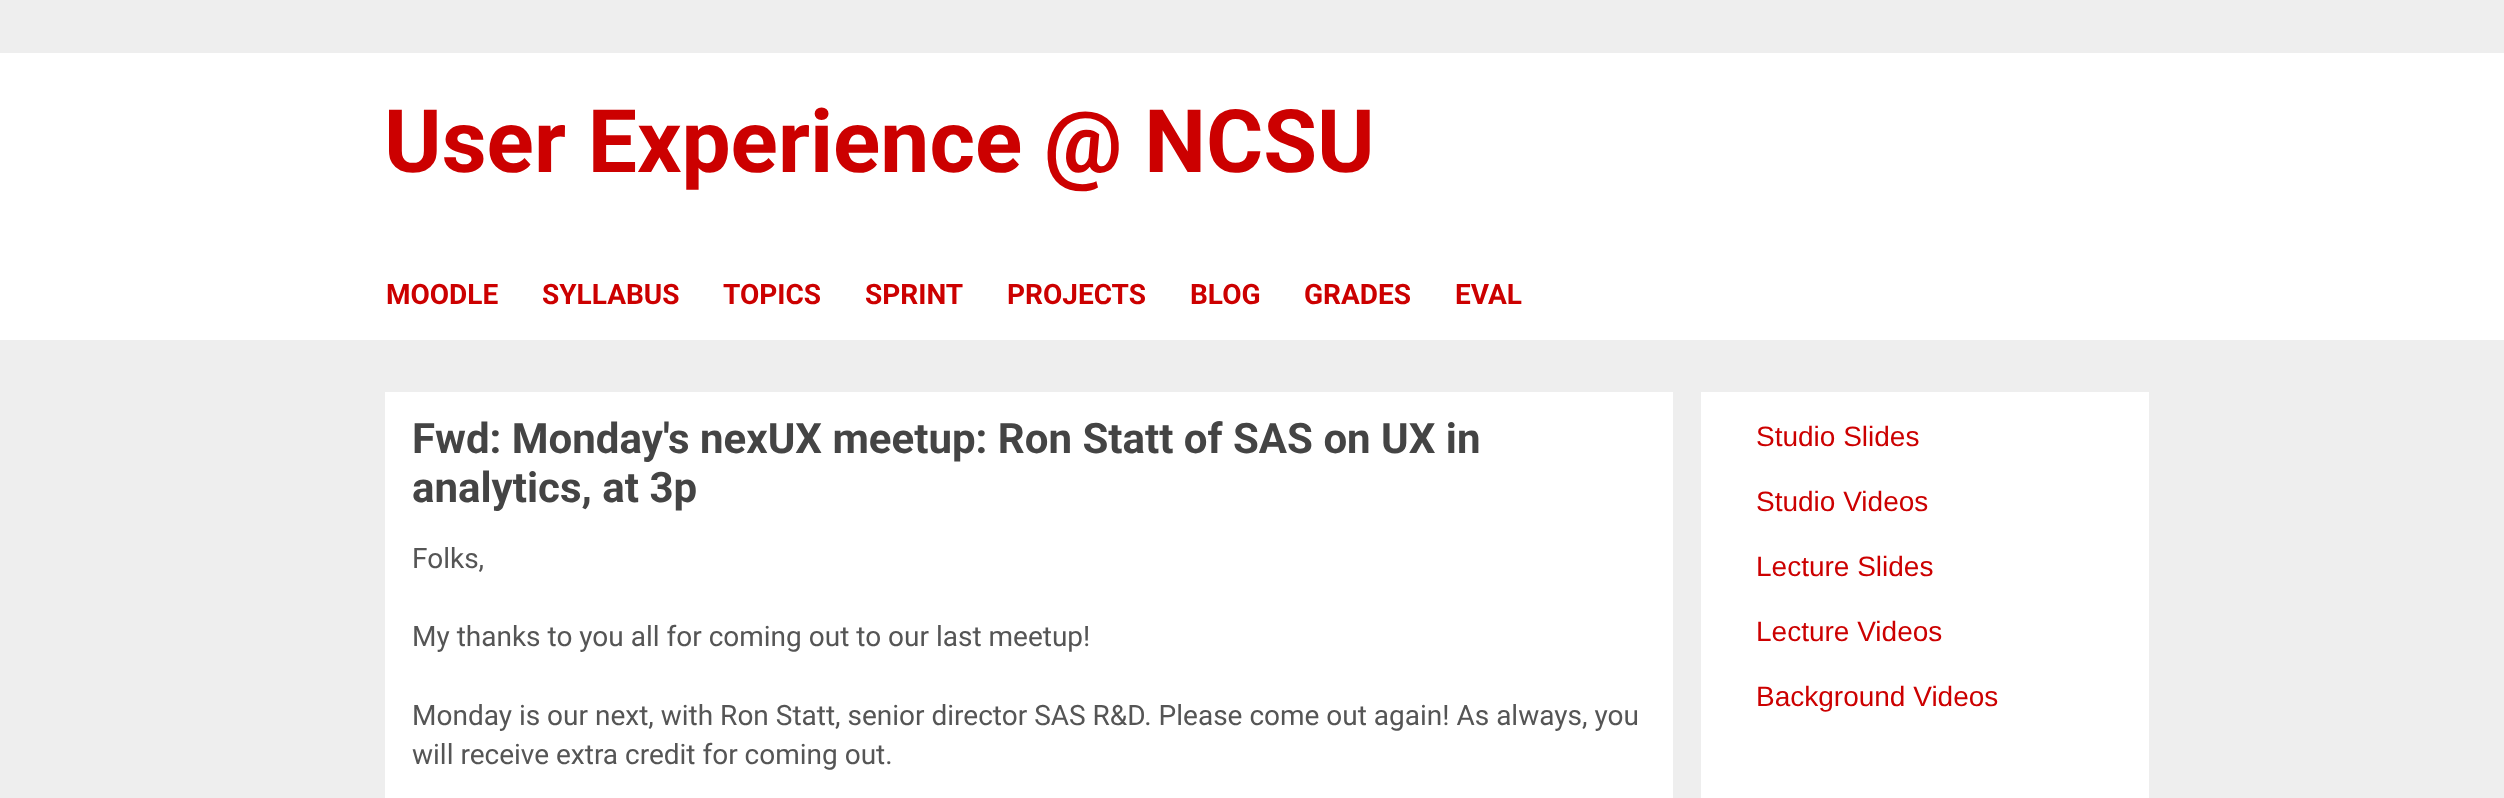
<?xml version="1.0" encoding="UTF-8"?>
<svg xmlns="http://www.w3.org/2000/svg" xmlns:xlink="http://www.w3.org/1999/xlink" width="2504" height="798">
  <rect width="100%" height="100%" fill="#eeeeee" />
  <rect y="53" width="2504" height="287" fill="#ffffff" />
  <rect x="385" y="392" width="1288" height="406" fill="#ffffff" />
  <rect x="1701" y="392" width="448" height="406" fill="#ffffff" />
  <text x="384" y="172" style="font-family: Roboto; font-size: 87.5px; font-weight: bold; fill: #cc0000">User Experience @ NCSU</text>
  <text x="386" y="304" style="font-family: Roboto; font-size: 28px; font-weight: bold; fill: #cc0000">MOODLE</text>
  <text x="542" y="304" style="font-family: Roboto; font-size: 28px; font-weight: bold; fill: #cc0000">SYLLABUS</text>
  <text x="723" y="304" style="font-family: Roboto; font-size: 28px; font-weight: bold; fill: #cc0000">TOPICS</text>
  <text x="865" y="304" style="font-family: Roboto; font-size: 28px; font-weight: bold; fill: #cc0000">SPRINT</text>
  <text x="1007" y="304" style="font-family: Roboto; font-size: 28px; font-weight: bold; fill: #cc0000">PROJECTS</text>
  <text x="1190" y="304" style="font-family: Roboto; font-size: 28px; font-weight: bold; fill: #cc0000">BLOG</text>
  <text x="1304" y="304" style="font-family: Roboto; font-size: 28px; font-weight: bold; fill: #cc0000">GRADES</text>
  <text x="1455" y="304" style="font-family: Roboto; font-size: 28px; font-weight: bold; fill: #cc0000">EVAL</text>
  <text x="412" y="453" style="font-family: Roboto; font-size: 42px; font-weight: bold; fill: #444444">Fwd: Monday's nexUX meetup: Ron Statt of SAS on UX in</text>
  <text x="412" y="502" style="font-family: Roboto; font-size: 42px; font-weight: bold; fill: #444444">analytics, at 3p</text>
  <text x="412" y="568" style="font-family: Roboto; font-size: 28px; fill: #555555">Folks,</text>
  <text x="412" y="646" style="font-family: Roboto; font-size: 28px; fill: #555555">My thanks to you all for coming out to our last meetup!</text>
  <text x="412" y="725" style="font-family: Roboto; font-size: 28px; fill: #555555">Monday is our next, with Ron Statt, senior director SAS R&amp;D. Please come out again! As always, you</text>
  <text x="412" y="764" style="font-family: Roboto; font-size: 28px; fill: #555555">will receive extra credit for coming out.</text>
  <text x="1756" y="446" style="font-family: Liberation Sans; font-size: 28px; fill: #cc0000">Studio Slides</text>
  <text x="1756" y="511" style="font-family: Liberation Sans; font-size: 28px; fill: #cc0000">Studio Videos</text>
  <text x="1756" y="576" style="font-family: Liberation Sans; font-size: 28px; fill: #cc0000">Lecture Slides</text>
  <text x="1756" y="641" style="font-family: Liberation Sans; font-size: 28px; fill: #cc0000">Lecture Videos</text>
  <text x="1756" y="706" style="font-family: Liberation Sans; font-size: 28px; fill: #cc0000">Background Videos</text>
</svg>
